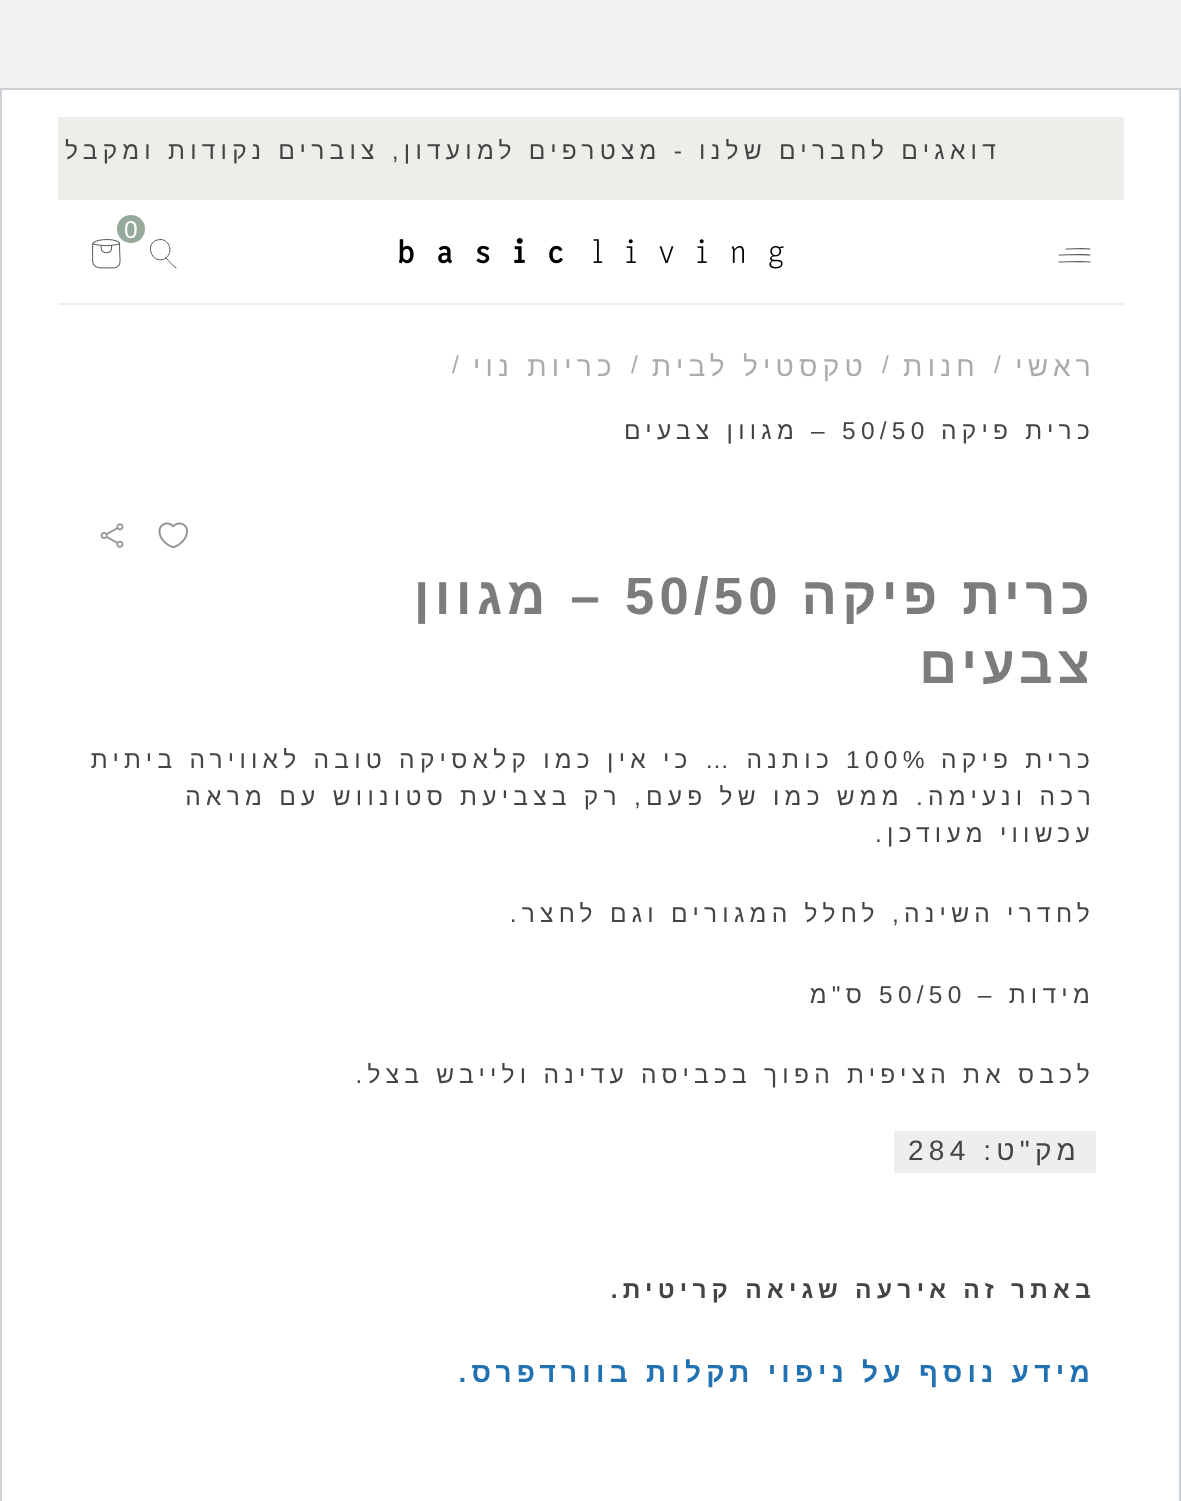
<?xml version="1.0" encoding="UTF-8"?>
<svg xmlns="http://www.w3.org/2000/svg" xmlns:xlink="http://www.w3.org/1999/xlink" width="1181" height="1501">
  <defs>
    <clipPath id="clip1"><rect x="58" y="117" width="1066" height="83" /></clipPath>
  </defs>
  <rect width="100%" height="100%" fill="#f1f1f1" />
  <rect x="1" y="89" width="1179" height="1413" fill="#ffffff" stroke="#ccd0d4" stroke-width="2" />
  <rect x="58" y="117" width="1066" height="83" fill="#edede9" />
  <rect x="58" y="303" width="1066" height="2" fill="#edede9" />
  <image x="92" y="239" width="29" height="30" xlink:href="image1.png" />
  <circle cx="131" cy="229" r="14" fill="#95aa9b" />
  <path d="M 166 258 c 3.5 3.5 7.5 8.5 10 10 m -10 -10 c -14.5 9.5 -24 -18.5 -5 -18.5 m 5 18.5 c 8 -7 3 -17.5 -4.5 -18.5" fill="none" stroke="#595959" stroke-linecap="round" />
  <path d="M 1090 249 c -5.5 -1 -16.5 0 -24 0 m 24 6 c -6 -1 -23.5 0 -31 0 m 31 7 l -9.5 -0.5 l -21.5 0.5" fill="none" stroke="#595959" stroke-width="1.1" stroke-linecap="round" />
  <image x="399" y="238" width="385" height="31" xlink:href="image2.png" />
  <image x="158" y="522" width="30" height="26" xlink:href="image3.png" />
  <image x="100" y="523" width="24" height="25" xlink:href="image4.png" />
  <rect x="894" y="1131" width="202" height="42" fill="#eeeeee" />
  <g clip-path="url(#clip1)">
    <text x="1001" y="159" style="font-family: Liberation Sans; font-size: 24.5px; letter-spacing: 5.25px; direction: rtl; fill: #444444">דואגים לחברים שלנו - מצטרפים למועדון, צוברים נקודות ומקבלים הנחות</text>
  </g>
  <text x="124" y="238" style="font-family: Liberation Sans; font-size: 24.5px; fill: #ffffff">0</text>
  <text x="1096" y="376" style="font-family: Liberation Sans; font-size: 28px; letter-spacing: 5.25px; direction: rtl; fill: #a8ada9">ראשי</text>
  <text x="994" y="373" style="font-family: Liberation Sans; font-size: 24.5px; letter-spacing: 5.25px; fill: #a8ada9">/</text>
  <text x="980" y="376" style="font-family: Liberation Sans; font-size: 28px; letter-spacing: 5.25px; direction: rtl; fill: #a8ada9">חנות</text>
  <text x="882" y="373" style="font-family: Liberation Sans; font-size: 24.5px; letter-spacing: 5.25px; fill: #a8ada9">/</text>
  <text x="868" y="376" style="font-family: Liberation Sans; font-size: 28px; letter-spacing: 5.25px; direction: rtl; fill: #a8ada9">טקסטיל לבית</text>
  <text x="631" y="373" style="font-family: Liberation Sans; font-size: 24.5px; letter-spacing: 5.25px; fill: #a8ada9">/</text>
  <text x="617" y="376" style="font-family: Liberation Sans; font-size: 28px; letter-spacing: 5.25px; direction: rtl; fill: #a8ada9">כריות נוי</text>
  <text x="452" y="373" style="font-family: Liberation Sans; font-size: 24.5px; letter-spacing: 5.25px; fill: #a8ada9">/</text>
  <text x="1095" y="439" style="font-family: Liberation Sans; font-size: 24.5px; letter-spacing: 5.25px; direction: rtl; fill: #444444">כרית פיקה</text>
  <text x="842" y="439" style="font-family: Liberation Sans; font-size: 24.5px; letter-spacing: 5.25px; fill: #444444">50/50</text>
  <text x="830" y="439" style="font-family: Liberation Sans; font-size: 24.5px; letter-spacing: 5.25px; direction: rtl; fill: #444444">– מגוון צבעים</text>
  <text x="1095" y="614" style="font-family: Liberation Sans; font-size: 52.5px; font-weight: bold; letter-spacing: 5.25px; direction: rtl; fill: #7b7c7b">כרית פיקה</text>
  <text x="625" y="614" style="font-family: Liberation Sans; font-size: 52.5px; font-weight: bold; letter-spacing: 5.25px; fill: #7b7c7b">50/50</text>
  <text x="605" y="614" style="font-family: Liberation Sans; font-size: 52.5px; font-weight: bold; letter-spacing: 5.25px; direction: rtl; fill: #7b7c7b">– מגוון</text>
  <text x="1095" y="683" style="font-family: Liberation Sans; font-size: 52.5px; font-weight: bold; letter-spacing: 5.25px; direction: rtl; fill: #7b7c7b">צבעים</text>
  <text x="1095" y="768" style="font-family: Liberation Sans; font-size: 24.5px; letter-spacing: 5.25px; direction: rtl; fill: #444444">כרית פיקה</text>
  <text x="846" y="768" style="font-family: Liberation Sans; font-size: 24.5px; letter-spacing: 5.25px; fill: #444444">100%</text>
  <text x="834" y="768" style="font-family: Liberation Sans; font-size: 24.5px; letter-spacing: 5.25px; direction: rtl; fill: #444444">כותנה … כי אין כמו קלאסיקה טובה לאווירה ביתית</text>
  <text x="1096" y="805" style="font-family: Liberation Sans; font-size: 24.5px; letter-spacing: 5.25px; direction: rtl; fill: #444444">רכה ונעימה. ממש כמו של פעם, רק בצביעת סטונווש עם מראה</text>
  <text x="1095" y="842" style="font-family: Liberation Sans; font-size: 24.5px; letter-spacing: 5.25px; direction: rtl; fill: #444444">עכשווי מעודכן.</text>
  <text x="1095" y="922" style="font-family: Liberation Sans; font-size: 24.5px; letter-spacing: 5.25px; direction: rtl; fill: #444444">לחדרי השינה, לחלל המגורים וגם לחצר.</text>
  <text x="1095" y="1003" style="font-family: Liberation Sans; font-size: 24.5px; letter-spacing: 5.25px; direction: rtl; fill: #444444">מידות –</text>
  <text x="879" y="1003" style="font-family: Liberation Sans; font-size: 24.5px; letter-spacing: 5.25px; fill: #444444">50/50</text>
  <text x="867" y="1003" style="font-family: Liberation Sans; font-size: 24.5px; letter-spacing: 5.25px; direction: rtl; fill: #444444">ס"מ</text>
  <text x="1095" y="1083" style="font-family: Liberation Sans; font-size: 24.5px; letter-spacing: 5.25px; direction: rtl; fill: #444444">לכבס את הציפית הפוך בכביסה עדינה ולייבש בצל.</text>
  <text x="1081" y="1160" style="font-family: Liberation Sans; font-size: 28px; letter-spacing: 5.25px; direction: rtl; fill: #444444">מק"ט:</text>
  <text x="908" y="1160" style="font-family: Liberation Sans; font-size: 28px; letter-spacing: 5.25px; fill: #444444">284</text>
  <text x="1096" y="1298" style="font-family: Liberation Sans; font-size: 24.5px; font-weight: bold; letter-spacing: 5.25px; direction: rtl; fill: #444444">באתר זה אירעה שגיאה קריטית.</text>
  <text x="1095" y="1382" style="font-family: Liberation Sans; font-size: 28px; font-weight: bold; letter-spacing: 5.25px; direction: rtl; fill: #2271b1">מידע נוסף על ניפוי תקלות בוורדפרס.</text>
</svg>
